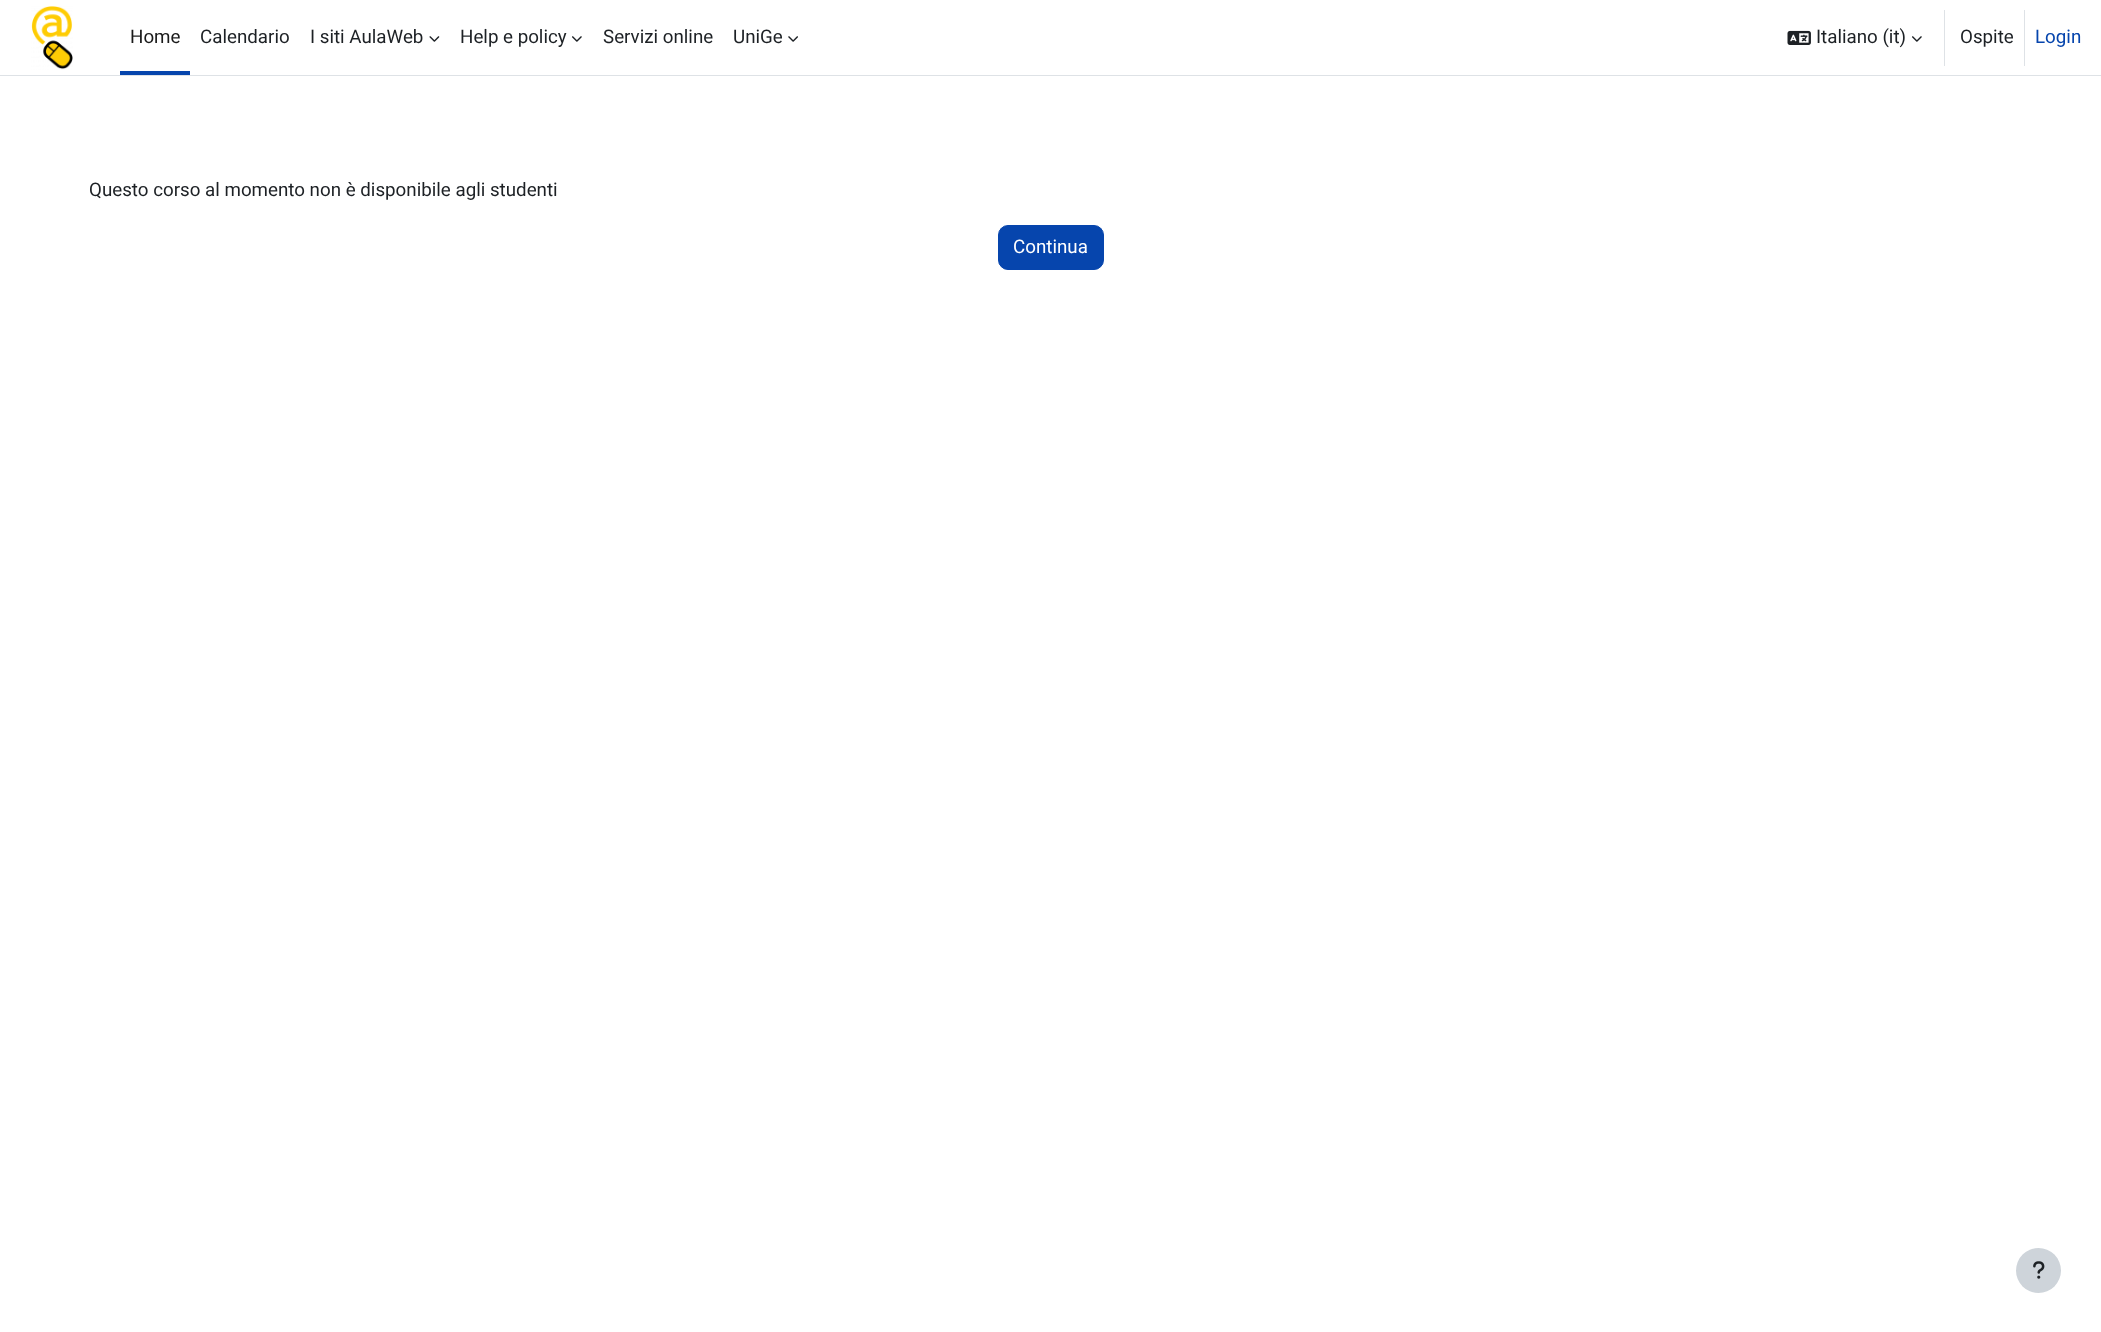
<?xml version="1.0" encoding="UTF-8"?>
<svg xmlns="http://www.w3.org/2000/svg" xmlns:xlink="http://www.w3.org/1999/xlink" width="2101" height="1332">
  <rect width="100%" height="100%" fill="#ffffff" />
  <rect y="75" width="2101" height="1" fill="#dee2e6" />
  <image x="31" y="6" width="42" height="64" xlink:href="image1.png" />
  <rect x="120" y="71" width="70" height="4" fill="#0645ad" />
  <image x="429" y="36" width="11" height="6" xlink:href="image2.png" />
  <image x="572" y="36" width="10" height="6" xlink:href="image3.png" />
  <image x="788" y="36" width="10" height="6" xlink:href="image4.png" />
  <image x="1787" y="30" width="24" height="15" xlink:href="image5.png" />
  <image x="1912" y="36" width="10" height="6" xlink:href="image3.png" />
  <rect x="1944" y="10" width="1" height="56" fill="#dee2e6" />
  <rect x="2024" y="10" width="1" height="56" fill="#dee2e6" />
  <rect x="998.5" y="225.5" width="105" height="44" rx="9.5" fill="#0645ad" stroke="#0645ad" />
  <circle cx="2038.5" cy="1270.5" r="22.5" fill="#ced4da" />
  <image x="2033" y="1261" width="12" height="18" xlink:href="image6.png" />
  <text x="130" y="43" style="font-family: Roboto; font-size: 18.75px; fill: #1a1a1a">Home</text>
  <text x="200" y="43" style="font-family: Roboto; font-size: 18.75px; fill: #1d2125">Calendario</text>
  <text x="310" y="43" style="font-family: Roboto; font-size: 18.75px; fill: #1d2125">I siti AulaWeb</text>
  <text x="460" y="43" style="font-family: Roboto; font-size: 18.75px; fill: #1d2125">Help e policy</text>
  <text x="603" y="43" style="font-family: Roboto; font-size: 18.75px; fill: #1d2125">Servizi online</text>
  <text x="733" y="43" style="font-family: Roboto; font-size: 18.75px; fill: #1d2125">UniGe</text>
  <text x="1816" y="43" style="font-family: Roboto; font-size: 18.75px; fill: #1d2125">Italiano (it)</text>
  <text x="1960" y="43" style="font-family: Roboto; font-size: 18.75px; fill: #1d2125">Ospite</text>
  <text x="2035" y="43" style="font-family: Roboto; font-size: 18.75px; fill: #0645ad">Login</text>
  <text x="89" y="196" style="font-family: Roboto; font-size: 18.75px; fill: #1d2125">Questo corso al momento non è disponibile agli studenti</text>
  <text x="1013" y="253" style="font-family: Roboto; font-size: 18.75px; fill: #ffffff">Continua</text>
</svg>
